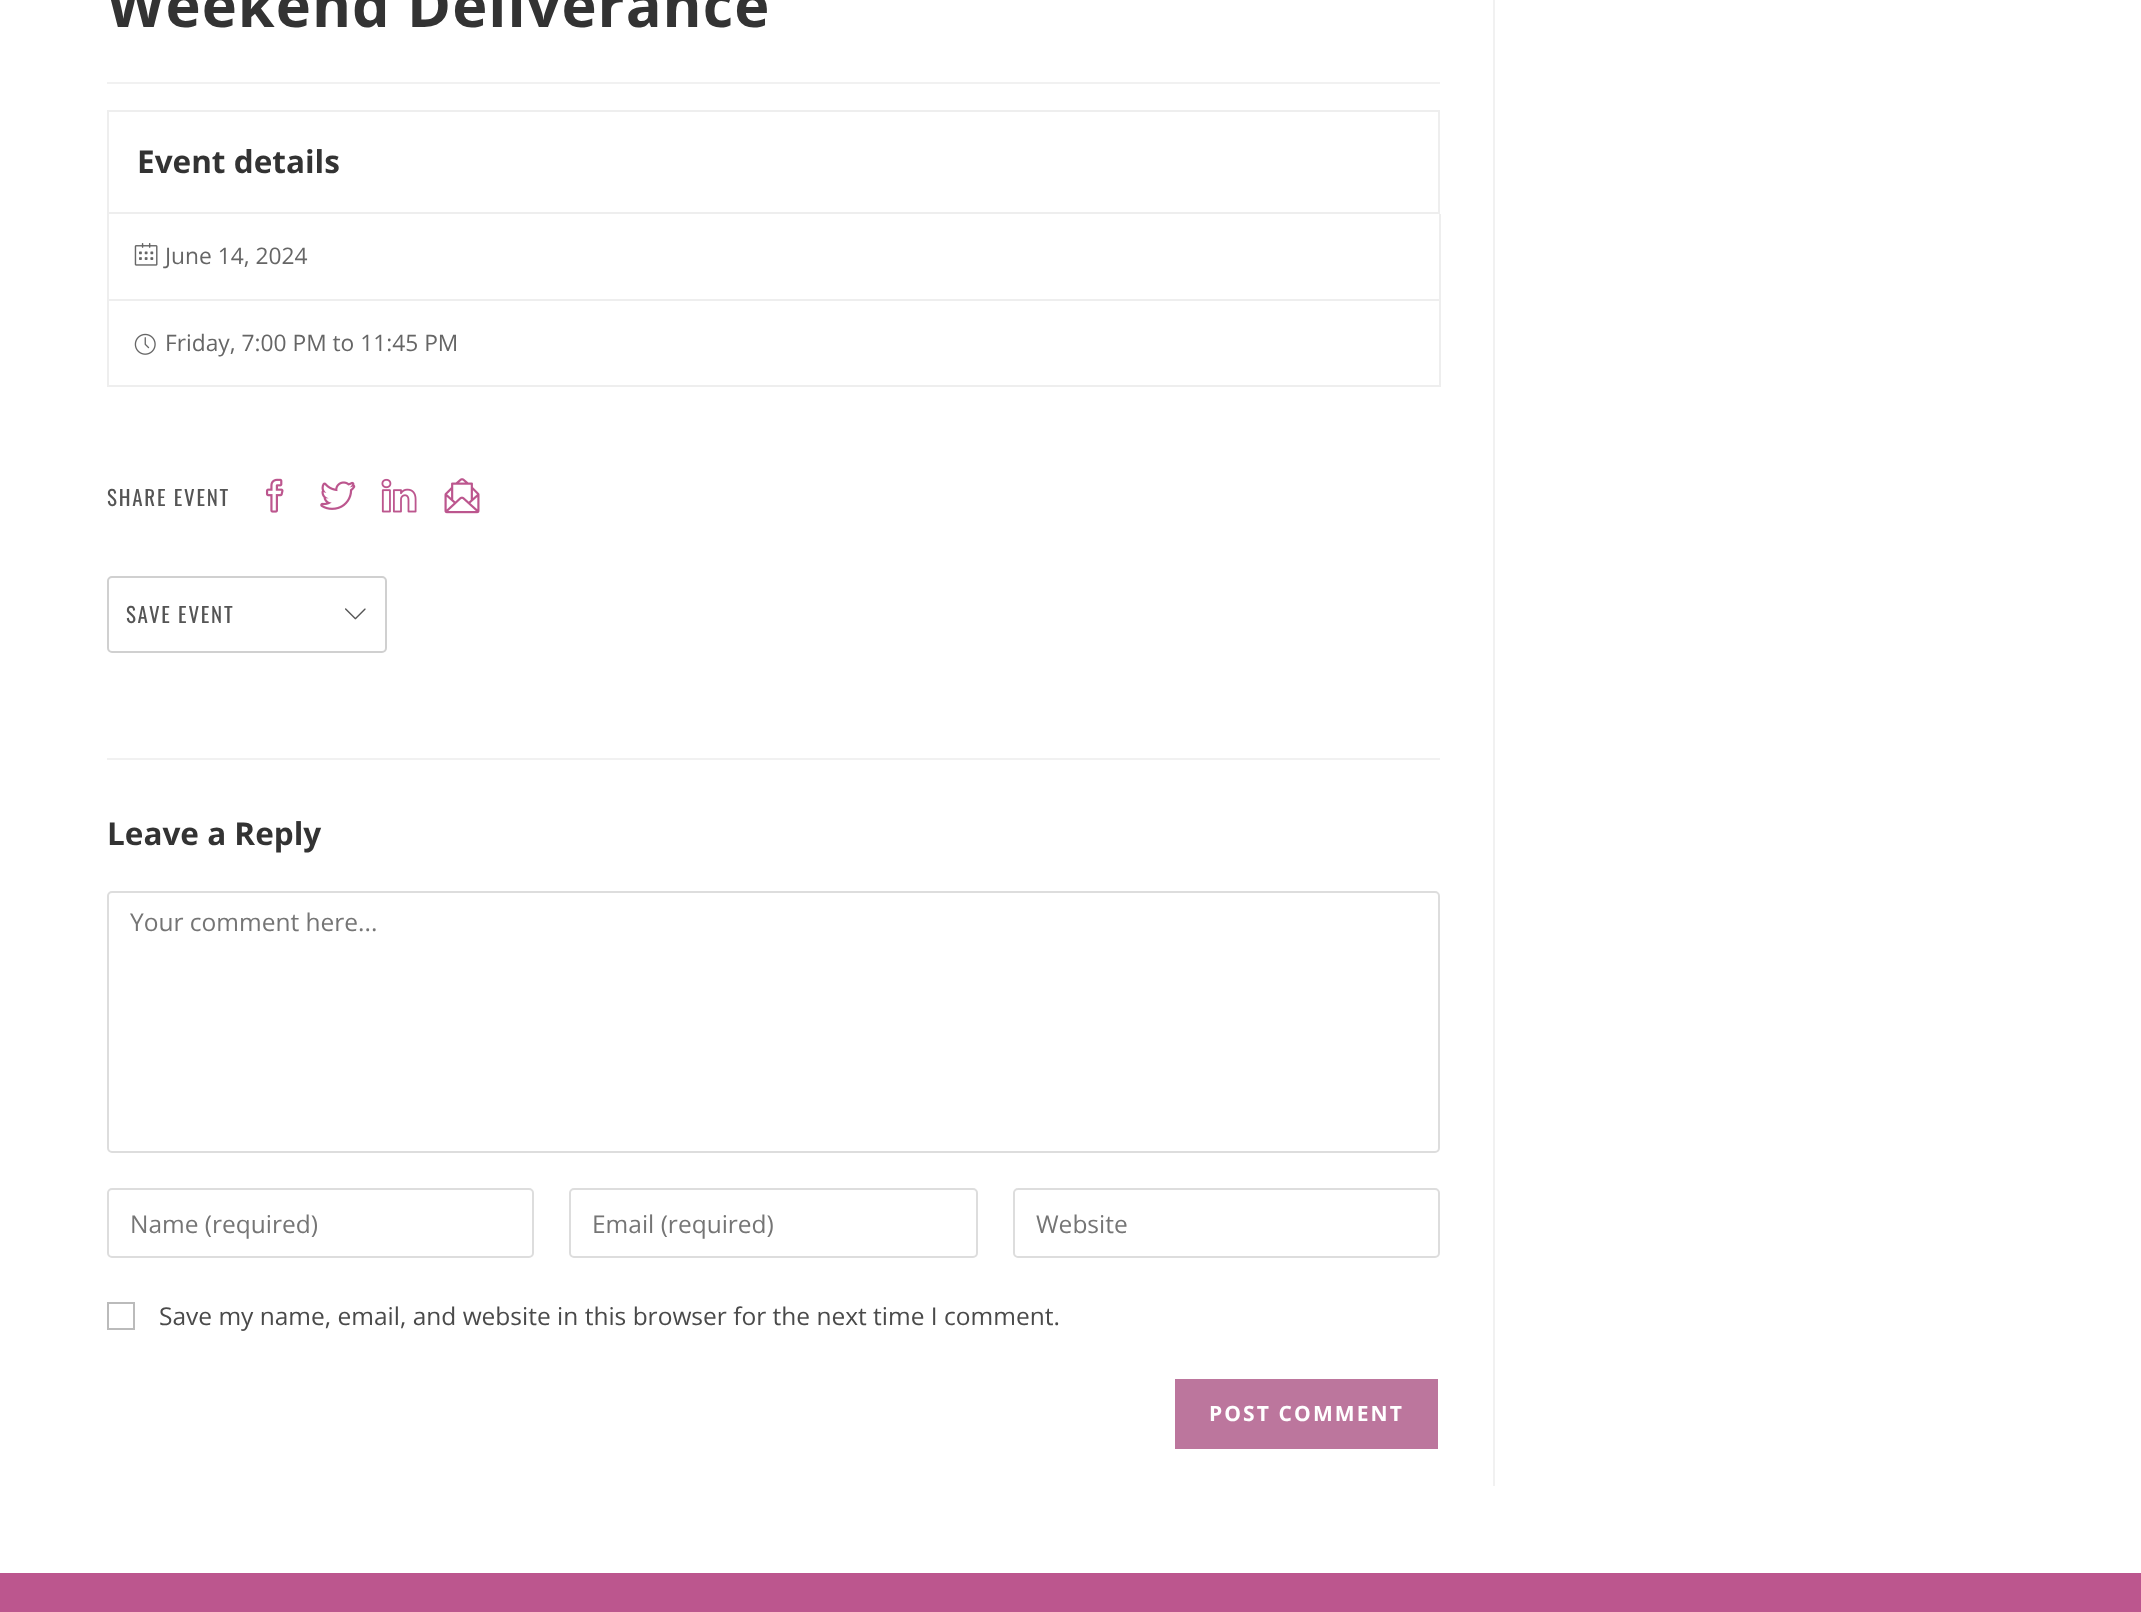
<?xml version="1.0" encoding="UTF-8"?>
<svg xmlns="http://www.w3.org/2000/svg" xmlns:xlink="http://www.w3.org/1999/xlink" width="2141" height="1612">
  <rect width="100%" height="100%" fill="#ffffff" />
  <rect x="1493" width="2" height="1486" fill="#f1f1f1" />
  <rect x="107" y="82" width="1333" height="2" fill="#f1f1f1" />
  <rect x="108" y="111" width="1331" height="102" fill="none" stroke="#eeeeee" stroke-width="2" />
  <rect x="1439" y="214" width="2" height="173" fill="#eeeeee" />
  <rect x="107" y="385" width="1333" height="2" fill="#eeeeee" />
  <rect x="107" y="214" width="2" height="173" fill="#eeeeee" />
  <rect x="109" y="299" width="1330" height="2" fill="#eeeeee" />
  <image x="134" y="243" width="24" height="23" xlink:href="image1.png" />
  <image x="134" y="333" width="22" height="22" xlink:href="image2.png" />
  <image x="265" y="478" width="19" height="35" xlink:href="image3.png" />
  <image x="320" y="481" width="36" height="29" xlink:href="image4.png" />
  <image x="381" y="478" width="36" height="35" xlink:href="image5.png" />
  <image x="444" y="478" width="36" height="36" xlink:href="image6.png" />
  <rect x="108" y="577" width="278" height="75" rx="4" fill="none" stroke="#d0d0d0" stroke-width="2" />
  <image x="345" y="608" width="21" height="12" xlink:href="image7.png" />
  <rect x="107" y="758" width="1333" height="2" fill="#f1f1f1" />
  <rect x="108" y="892" width="1331" height="260" rx="4" fill="none" stroke="#dddddd" stroke-width="2" />
  <rect x="108" y="1189" width="425" height="68" rx="4" fill="none" stroke="#dddddd" stroke-width="2" />
  <rect x="570" y="1189" width="407" height="68" rx="4" fill="none" stroke="#dddddd" stroke-width="2" />
  <rect x="1014" y="1189" width="425" height="68" rx="4" fill="none" stroke="#dddddd" stroke-width="2" />
  <rect x="108" y="1303" width="26" height="26" fill="none" stroke="#bbbbbb" stroke-width="2" />
  <rect x="1175" y="1379" width="263" height="70" fill="#bc769d" />
  <rect y="1573" width="2141" height="39" fill="#bc568e" />
  <text x="107" y="27" style="font-family: Open Sans; font-size: 59.5px; font-weight: bold; letter-spacing: 1px; fill: #333333">Weekend Deliverance</text>
  <text x="137" y="173" style="font-family: Open Sans; font-size: 31.5px; font-weight: bold; fill: #333333">Event details</text>
  <text x="165" y="264" style="font-family: Open Sans; font-size: 22.75px; fill: #666666">June 14, 2024</text>
  <text x="165" y="351" style="font-family: Open Sans; font-size: 22.75px; fill: #666666">Friday, 7:00 PM to 11:45 PM</text>
  <text x="107" y="506" style="font-family: Oswald; font-size: 21px; letter-spacing: 1.75px; fill: #555555">SHARE EVENT</text>
  <text x="126" y="623" style="font-family: Oswald; font-size: 21px; letter-spacing: 1.75px; fill: #555555">SAVE EVENT</text>
  <text x="107" y="845" style="font-family: Open Sans; font-size: 31.5px; font-weight: bold; fill: #333333">Leave a Reply</text>
  <text x="130" y="931" style="font-family: Open Sans; font-size: 24.5px; fill: #757575">Your comment here...</text>
  <text x="130" y="1233" style="font-family: Open Sans; font-size: 24.5px; fill: #757575">Name (required)</text>
  <text x="592" y="1233" style="font-family: Open Sans; font-size: 24.5px; fill: #757575">Email (required)</text>
  <text x="1036" y="1233" style="font-family: Open Sans; font-size: 24.5px; fill: #757575">Website</text>
  <text x="159" y="1325" style="font-family: Open Sans; font-size: 24.5px; fill: #4a4a4a">Save my name, email, and website in this browser for the next time I comment.</text>
  <text x="1209" y="1421" style="font-family: Open Sans; font-size: 21px; font-weight: bold; letter-spacing: 2.1px; fill: #ffffff">POST COMMENT</text>
</svg>
